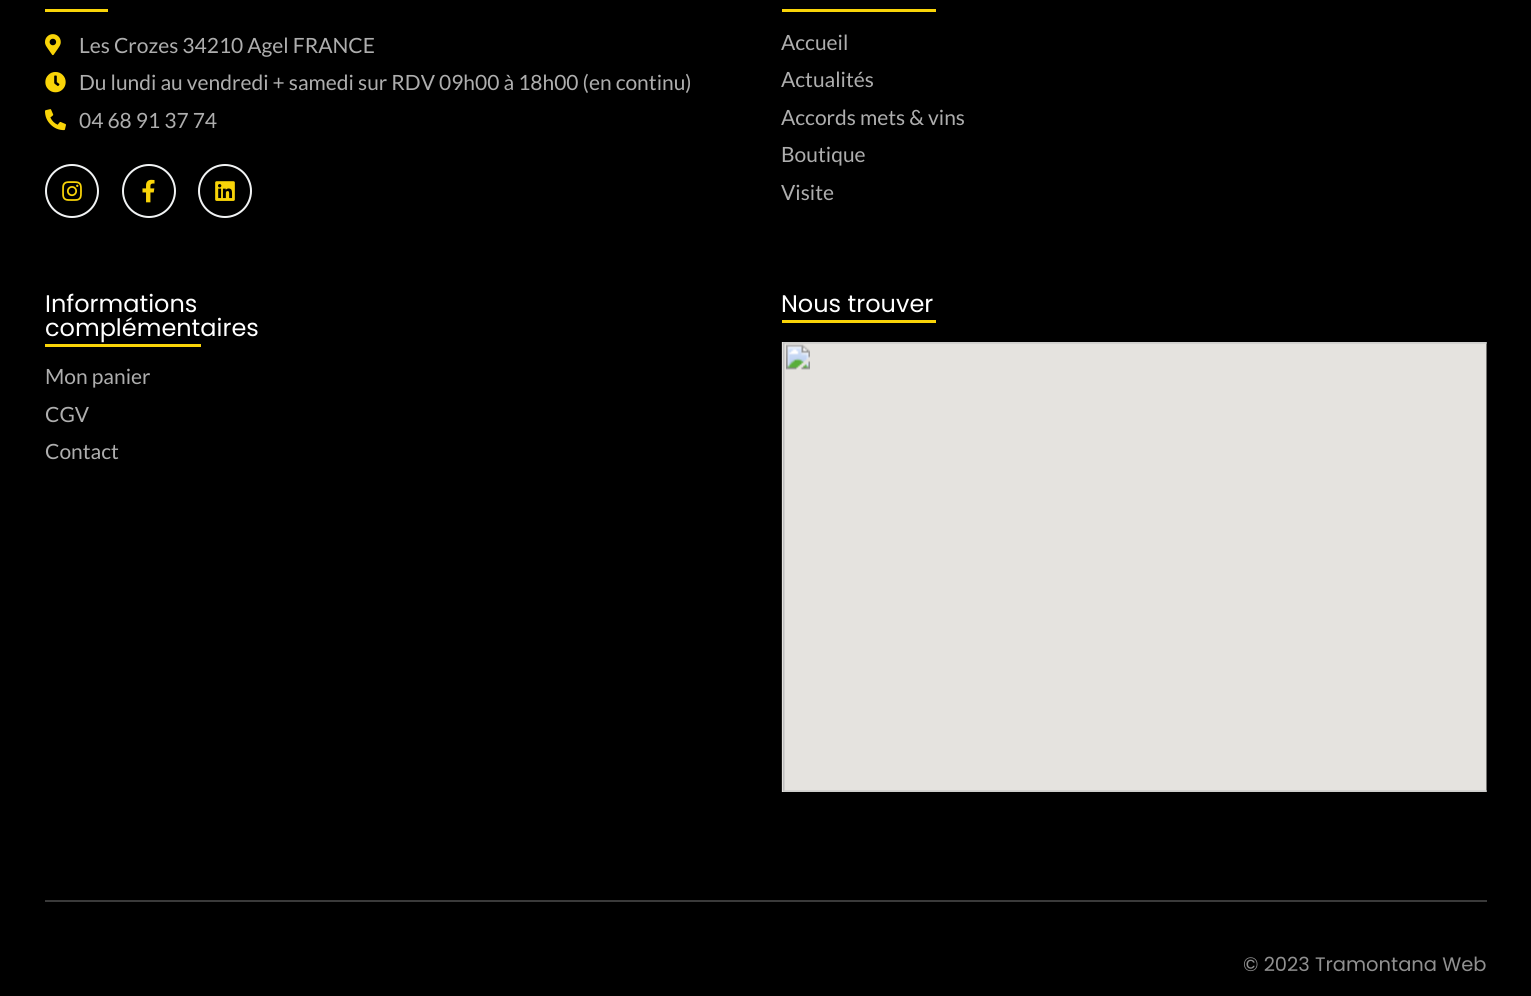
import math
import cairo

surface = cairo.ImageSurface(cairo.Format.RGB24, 1531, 996)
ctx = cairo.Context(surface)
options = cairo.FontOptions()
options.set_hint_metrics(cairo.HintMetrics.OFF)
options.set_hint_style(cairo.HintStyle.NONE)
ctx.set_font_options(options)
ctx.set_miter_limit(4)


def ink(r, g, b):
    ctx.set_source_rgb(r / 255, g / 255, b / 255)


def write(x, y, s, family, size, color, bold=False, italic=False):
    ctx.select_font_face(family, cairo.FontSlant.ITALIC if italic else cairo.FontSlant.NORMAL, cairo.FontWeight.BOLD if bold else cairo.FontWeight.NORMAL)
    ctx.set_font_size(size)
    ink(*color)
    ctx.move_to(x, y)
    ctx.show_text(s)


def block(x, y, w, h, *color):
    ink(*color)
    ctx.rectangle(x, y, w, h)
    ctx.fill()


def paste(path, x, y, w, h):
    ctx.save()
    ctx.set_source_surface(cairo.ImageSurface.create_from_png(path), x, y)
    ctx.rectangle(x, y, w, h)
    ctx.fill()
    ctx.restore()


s1 = dict(family="Lato", size=21, color=(174, 174, 174))
s2 = dict(family="Poppins", size=24, color=(255, 255, 255))
s3 = dict(family="Poppins", size=19.5, color=(144, 144, 144))

ink(0, 0, 0)
ctx.paint()
block(45, 9, 63, 3, 249, 212, 8)
paste("pic1.png", 45, 34, 16, 22)
write(79, 53, "Les Crozes 34210 Agel FRANCE", **s1)
paste("pic2.png", 45, 72, 21, 21)
write(79, 90, "Du lundi au vendredi + samedi sur RDV 09h00 à 18h00 (en continu)", **s1)
paste("pic3.png", 45, 109, 21, 22)
write(79, 128, "04 68 91 37 74", **s1)
ctx.new_path()
ctx.arc(72, 191, 26, 0, 2 * math.pi)
ink(241, 243, 244)
ctx.stroke()
paste("pic4.png", 62, 181, 20, 20)
ctx.arc(149, 191, 26, 0, 2 * math.pi)
ctx.stroke()
paste("pic5.png", 142, 179, 13, 24)
ctx.arc(225, 191, 26, 0, 2 * math.pi)
ctx.stroke()
paste("pic6.png", 215, 181, 20, 20)
block(782, 9, 154, 3, 249, 212, 8)
write(781, 50, "Accueil", **s1)
write(781, 87, "Actualités", **s1)
write(781, 125, "Accords mets & vins", **s1)
write(781, 162, "Boutique", **s1)
write(781, 200, "Visite", **s1)
write(45, 312, "Informations", **s2)
write(45, 336, "complémentaires", **s2)
block(45, 344, 156, 3, 249, 212, 8)
write(45, 384, "Mon panier", **s1)
write(45, 422, "CGV", **s1)
write(45, 459, "Contact", **s1)
write(781, 312, "Nous trouver", **s2)
block(782, 320, 154, 3, 249, 212, 8)
paste("pic7.png", 781, 342, 706, 450)
block(45, 900, 1442, 2, 58, 58, 58)
write(1243, 971, "© 2023 Tramontana Web", **s3)
surface.write_to_png("screenshot.png")
